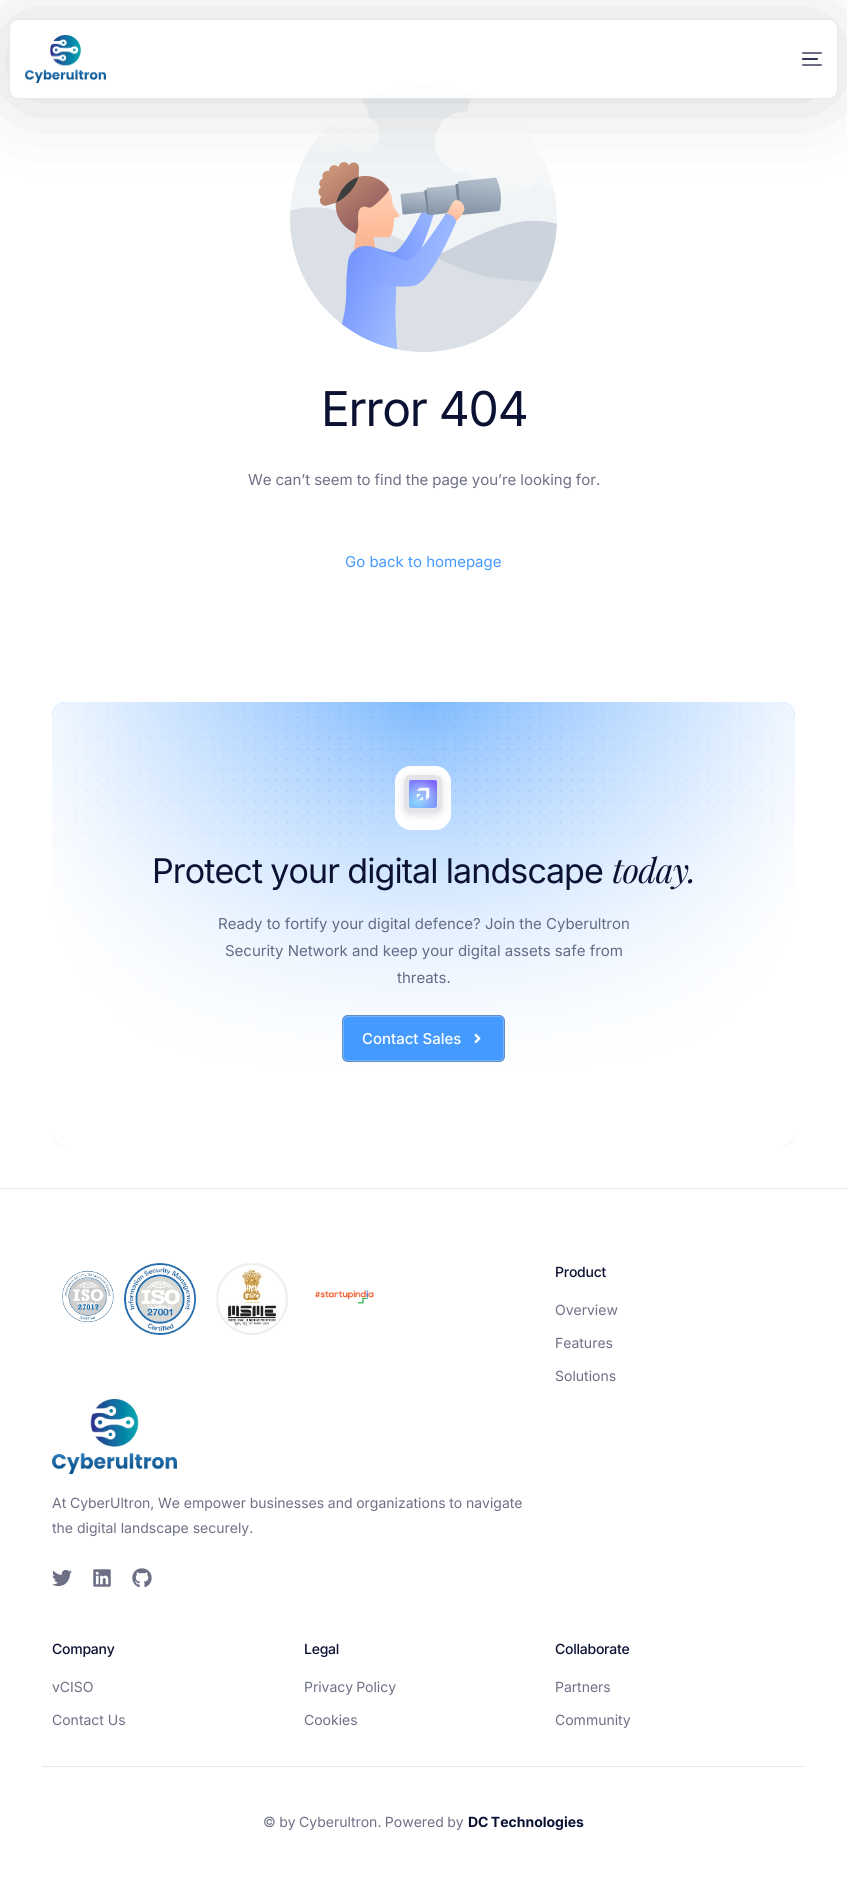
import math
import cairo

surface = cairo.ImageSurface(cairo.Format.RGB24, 847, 1896)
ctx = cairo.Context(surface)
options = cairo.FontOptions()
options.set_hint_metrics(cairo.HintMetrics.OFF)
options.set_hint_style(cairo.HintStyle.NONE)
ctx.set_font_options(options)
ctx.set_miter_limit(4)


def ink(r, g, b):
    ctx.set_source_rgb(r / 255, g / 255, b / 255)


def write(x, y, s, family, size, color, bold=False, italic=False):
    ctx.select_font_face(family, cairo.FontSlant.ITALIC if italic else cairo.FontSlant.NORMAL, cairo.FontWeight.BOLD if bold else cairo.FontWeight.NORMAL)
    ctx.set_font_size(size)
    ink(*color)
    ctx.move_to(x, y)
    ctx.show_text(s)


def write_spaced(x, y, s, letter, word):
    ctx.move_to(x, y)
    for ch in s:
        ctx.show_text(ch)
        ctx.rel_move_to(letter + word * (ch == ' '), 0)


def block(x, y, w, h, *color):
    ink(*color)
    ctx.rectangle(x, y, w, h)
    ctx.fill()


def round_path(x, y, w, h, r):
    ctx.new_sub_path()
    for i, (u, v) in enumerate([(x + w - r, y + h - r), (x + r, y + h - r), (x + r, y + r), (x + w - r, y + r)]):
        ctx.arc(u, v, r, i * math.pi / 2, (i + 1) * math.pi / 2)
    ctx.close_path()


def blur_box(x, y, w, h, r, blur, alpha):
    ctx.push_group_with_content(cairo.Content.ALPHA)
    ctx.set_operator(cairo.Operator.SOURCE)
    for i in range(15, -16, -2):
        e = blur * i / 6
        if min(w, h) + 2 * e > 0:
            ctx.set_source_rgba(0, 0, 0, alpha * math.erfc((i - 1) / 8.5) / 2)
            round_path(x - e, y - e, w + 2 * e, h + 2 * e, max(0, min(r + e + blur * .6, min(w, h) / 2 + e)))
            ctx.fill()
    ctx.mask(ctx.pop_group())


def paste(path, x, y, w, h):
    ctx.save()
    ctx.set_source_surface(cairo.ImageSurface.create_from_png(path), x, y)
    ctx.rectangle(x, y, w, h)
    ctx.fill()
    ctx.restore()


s1 = dict(family="Inter", size=15, color=(68, 154, 255))
s2 = dict(family="Inter", size=15, color=(99, 107, 133))
s3 = dict(family="Inter Medium", size=15, color=(255, 255, 255))
s4 = dict(family="Inter", size=14, color=(109, 112, 133))

ink(255, 255, 255)
ctx.paint()
paste("pic2.png", 290, 85, 267, 267)
ctx.save()
ctx.set_fill_rule(cairo.FillRule.EVEN_ODD)
ctx.new_path()
ctx.move_to(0, 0)
ctx.line_to(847, 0)
ctx.line_to(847, 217)
ctx.line_to(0, 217)
ctx.close_path()
ctx.move_to(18, 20)
ctx.line_to(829, 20)
ctx.curve_to(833.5, 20, 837, 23.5, 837, 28)
ctx.line_to(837, 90)
ctx.curve_to(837, 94.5, 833.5, 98, 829, 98)
ctx.line_to(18, 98)
ctx.curve_to(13.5, 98, 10, 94.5, 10, 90)
ctx.line_to(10, 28)
ctx.curve_to(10, 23.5, 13.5, 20, 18, 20)
ctx.close_path()
ctx.clip()
ink(0, 0, 0)
blur_box(28, 43, 787, 38, 0, 45, 0.25)
ctx.restore()
ctx.set_source_rgba(1, 1, 1, 0.85)
round_path(9.5, 19.5, 828, 79, 8.5)
ctx.fill_preserve()
ink(232, 232, 232)
ctx.set_line_width(1)
ctx.stroke()
paste("pic1.png", 25, 35, 81, 48)
ink(109, 112, 133)
round_path(802, 52, 20, 2, 1)
ctx.fill()
round_path(802, 58, 16, 2, 1)
ctx.fill()
ctx.set_source_rgba(0.043, 0.067, 0.2, 0.6)
round_path(802, 58, 16, 2, 1)
ctx.fill()
ink(109, 112, 133)
round_path(802, 64, 20, 2, 1)
ctx.fill()
ctx.select_font_face("Inter")
ctx.set_font_size(48)
ink(11, 17, 51)
write_spaced(321, 426, "Error 404", -1.25, 0)
ctx.set_font_size(15)
ink(109, 112, 133)
write_spaced(248, 485, "We can’t seem to find the page you’re looking for.", 0, -0.25)
write(345, 567, "Go back to homepage", **s1)
round_path(52, 702, 743, 444, 14)
ctx.fill()
gradient = cairo.RadialGradient(0, 0, 0, 0, 0, 1)
gradient.set_matrix(cairo.Matrix(1 / 525, 0, 0, 1 / 628, -1 * 424 / 525, -1 * 702 / 628))
gradient.add_color_stop_rgba(0, 1, 1, 1, 0.32)
gradient.add_color_stop_rgba(0.8, 1, 1, 1, 1)
ctx.set_source(gradient)
round_path(52, 702, 743, 444, 14)
ctx.fill()
gradient = cairo.LinearGradient(424, 702, 424, 1146)
gradient.add_color_stop_rgba(0, 1, 1, 1, 0)
gradient.add_color_stop_rgba(0.85, 1, 1, 1, 1)
ctx.set_source(gradient)
round_path(52, 702, 743, 444, 14)
ctx.fill()
paste("pic3.png", 54, 706, 740, 139)
ink(255, 255, 255)
round_path(395, 766, 56, 64, 16)
ctx.fill()
ctx.save()
ctx.set_fill_rule(cairo.FillRule.EVEN_ODD)
ctx.new_path()
ctx.move_to(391, 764)
ctx.line_to(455, 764)
ctx.line_to(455, 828)
ctx.line_to(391, 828)
ctx.close_path()
ctx.move_to(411, 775)
ctx.line_to(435, 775)
ctx.curve_to(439, 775, 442, 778, 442, 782)
ctx.line_to(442, 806)
ctx.curve_to(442, 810, 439, 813, 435, 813)
ctx.line_to(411, 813)
ctx.curve_to(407, 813, 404, 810, 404, 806)
ctx.line_to(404, 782)
ctx.curve_to(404, 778, 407, 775, 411, 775)
ctx.close_path()
ctx.clip()
ink(11, 17, 51)
blur_box(404, 777, 38, 38, 7, 4, 0.14)
ctx.restore()
round_path(406.5, 777.5, 33, 33, 4.5)
ctx.set_source_rgba(0.682, 0.69, 0.737, 0.35)
ctx.set_line_width(5)
ctx.stroke()
paste("pic4.png", 409, 780, 28, 28)
ctx.set_font_size(34)
ink(11, 17, 51)
write_spaced(152, 883, "Protect your digital landscape", -0.9, -0.5)
ctx.select_font_face("Playfair Display", cairo.FontSlant.ITALIC)
write_spaced(612, 883, "today.", -0.9, 0)
write(218, 929, "Ready to fortify your digital defence? Join the Cyberultron", **s2)
write(225, 956, "Security Network and keep your digital assets safe from", **s2)
write(397, 983, "threats.", **s2)
ink(68, 154, 255)
round_path(342, 1015, 163, 47, 6)
ctx.fill()
round_path(343.5, 1016.5, 160, 44, 4.5)
ink(115, 179, 255)
ctx.set_line_width(1)
ctx.stroke()
round_path(342.5, 1015.5, 162, 46, 5.5)
ctx.set_source_rgba(0.51, 0.51, 0.51, 0.47)
ctx.stroke()
write(362, 1044, "Contact Sales", **s3)
paste("pic5.png", 474, 1033, 7, 11)
block(0, 1188, 847, 1, 233, 233, 233)
ctx.set_font_size(14)
ink(11, 17, 51)
write_spaced(555, 1277, "Product", -0.25, 0)
write(555, 1315, "Overview", **s4)
write(555, 1348, "Features", **s4)
write(555, 1381, "Solutions", **s4)
paste("pic6.png", 62, 1270, 52, 53)
paste("pic7.png", 124, 1263, 72, 72)
paste("pic8.png", 216, 1263, 72, 72)
paste("pic9.png", 314, 1290, 60, 14)
paste("pic10.png", 52, 1399, 125, 75)
write_spaced(52, 1508, "At CyberUltron, We empower businesses and organizations to navigate", 0, -0.25)
write(52, 1533, "the digital landscape securely.", **s4)
paste("pic11.png", 52, 1569, 20, 18)
paste("pic12.png", 93, 1569, 18, 18)
paste("pic13.png", 132, 1568, 20, 20)
ctx.select_font_face("Inter Medium")
ink(11, 17, 51)
write_spaced(52, 1654, "Company", -0.25, 0)
write(52, 1692, "vCISO", **s4)
write(52, 1725, "Contact Us", **s4)
ctx.select_font_face("Inter Medium")
ink(11, 17, 51)
write_spaced(304, 1654, "Legal", -0.25, 0)
ctx.select_font_face("Inter")
ink(109, 112, 133)
write_spaced(304, 1692, "Privacy Policy", 0, -1)
write(304, 1725, "Cookies", **s4)
ctx.select_font_face("Inter Medium")
ink(11, 17, 51)
write_spaced(555, 1654, "Collaborate", -0.25, 0)
write(555, 1692, "Partners", **s4)
write(555, 1725, "Community", **s4)
block(42, 1766, 763, 1, 233, 233, 233)
ink(109, 112, 133)
write_spaced(263, 1827, "© by Cyberultron. Powered by", 0, -0.5)
ctx.select_font_face("Inter", cairo.FontSlant.NORMAL, cairo.FontWeight.BOLD)
ink(11, 17, 51)
write_spaced(468, 1827, "DC Technologies", 0, -1)
surface.write_to_png("screenshot.png")
